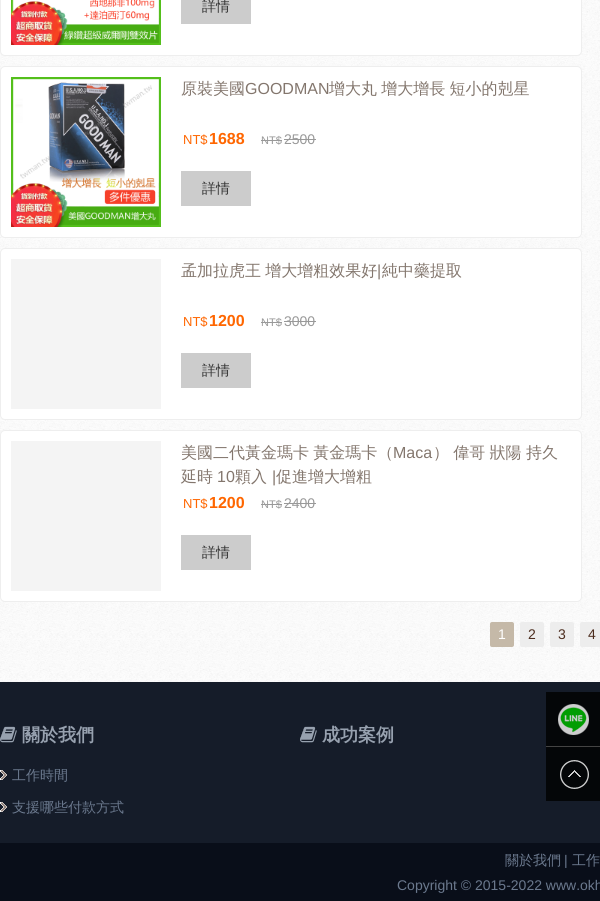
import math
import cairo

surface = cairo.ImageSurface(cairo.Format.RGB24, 600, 901)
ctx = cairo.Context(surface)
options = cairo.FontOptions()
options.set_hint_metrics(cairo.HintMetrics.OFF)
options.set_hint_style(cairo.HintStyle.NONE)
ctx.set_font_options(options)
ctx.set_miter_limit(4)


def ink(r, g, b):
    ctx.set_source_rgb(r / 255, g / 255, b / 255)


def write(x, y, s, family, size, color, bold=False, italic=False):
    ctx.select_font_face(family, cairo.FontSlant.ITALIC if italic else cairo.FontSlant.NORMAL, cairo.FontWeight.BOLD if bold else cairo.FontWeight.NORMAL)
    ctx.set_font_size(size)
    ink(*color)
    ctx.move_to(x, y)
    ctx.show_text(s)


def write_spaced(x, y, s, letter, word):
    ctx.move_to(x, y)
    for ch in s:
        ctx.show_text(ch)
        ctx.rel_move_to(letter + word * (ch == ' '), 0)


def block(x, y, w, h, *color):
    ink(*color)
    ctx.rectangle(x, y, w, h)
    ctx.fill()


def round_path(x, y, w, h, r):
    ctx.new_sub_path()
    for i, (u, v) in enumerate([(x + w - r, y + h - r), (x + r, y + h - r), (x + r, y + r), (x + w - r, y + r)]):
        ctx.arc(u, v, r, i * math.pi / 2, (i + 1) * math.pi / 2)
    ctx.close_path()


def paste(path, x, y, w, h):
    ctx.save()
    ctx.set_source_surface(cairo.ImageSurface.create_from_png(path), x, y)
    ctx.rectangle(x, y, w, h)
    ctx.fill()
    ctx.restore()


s1 = dict(family="WenQuanYi Zen Hei Medium", size=14, color=(51, 51, 51))
s2 = dict(family="WenQuanYi Zen Hei Medium", size=16, color=(131, 118, 109))
s3 = dict(family="Liberation Sans", size=16, color=(131, 118, 109))
s4 = dict(family="Liberation Sans", size=13, color=(255, 102, 0))
s5 = dict(family="Liberation Sans", size=16, color=(255, 102, 0), bold=True)
s6 = dict(family="Liberation Sans", size=11, color=(153, 153, 153))
s7 = dict(family="Liberation Sans", size=14, color=(153, 153, 153))
s8 = dict(family="Liberation Sans", size=14, color=(255, 255, 255))
s9 = dict(family="Liberation Sans", size=14, color=(76, 45, 30))
s10 = dict(family="WenQuanYi Zen Hei", size=18, color=(151, 161, 175), bold=True)
s11 = dict(family="WenQuanYi Zen Hei Medium", size=14, color=(107, 121, 142))
s12 = dict(family="Liberation Sans", size=14, color=(107, 121, 142))

ink(255, 255, 255)
ctx.paint()
paste("pic1.png", 0, 0, 600, 682)
ink(255, 255, 255)
round_path(0.5, -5.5, 581, 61, 4.5)
ctx.fill_preserve()
ink(238, 238, 238)
ctx.set_line_width(1)
ctx.stroke()
paste("pic2.png", 11, 0, 150, 45)
block(181, 0, 70, 24, 204, 204, 204)
write(202, 11, "詳情", **s1)
ink(255, 255, 255)
round_path(0.5, 66.5, 581, 171, 4.5)
ctx.fill_preserve()
ink(238, 238, 238)
ctx.stroke()
paste("pic3.png", 11, 77, 150, 150)
write(181, 94, "原裝美國", **s2)
write(245, 94, "GOODMAN", **s3)
ctx.select_font_face("WenQuanYi Zen Hei Medium")
write_spaced(329, 94, "增大丸 增大增長 短小的剋星", 0, -0.5)
write(183, 144, "NT$", **s4)
write(209, 144, "1688", **s5)
write(261, 144, "NT$", **s6)
block(261, 140, 21, 1, 153, 153, 153)
write(284, 144, "2500", **s7)
block(284, 139, 32, 1, 153, 153, 153)
block(181, 171, 70, 35, 204, 204, 204)
write(202, 193, "詳情", **s1)
ink(255, 255, 255)
round_path(0.5, 248.5, 581, 171, 4.5)
ctx.fill_preserve()
ink(238, 238, 238)
ctx.stroke()
block(11, 259, 150, 150, 244, 244, 244)
ctx.set_font_size(16)
ink(131, 118, 109)
write_spaced(181, 276, "孟加拉虎王 增大增粗效果好", 0, -0.5)
write(377, 276, "|", **s3)
write(382, 276, "純中藥提取", **s2)
write(183, 326, "NT$", **s4)
write(209, 326, "1200", **s5)
write(261, 326, "NT$", **s6)
block(261, 322, 21, 1, 153, 153, 153)
write(284, 326, "3000", **s7)
block(284, 321, 32, 1, 153, 153, 153)
block(181, 353, 70, 35, 204, 204, 204)
write(202, 375, "詳情", **s1)
ink(255, 255, 255)
round_path(0.5, 430.5, 581, 171, 4.5)
ctx.fill_preserve()
ink(238, 238, 238)
ctx.stroke()
block(11, 441, 150, 150, 244, 244, 244)
ctx.set_font_size(16)
ink(131, 118, 109)
write_spaced(181, 458, "美國二代黃金瑪卡 黃金瑪卡（", 0, -0.5)
write(393, 458, "Maca", **s3)
ctx.select_font_face("WenQuanYi Zen Hei Medium")
write_spaced(433, 458, "） 偉哥 狀陽 持久", 0, -0.5)
write(181, 482, "延時", **s2)
write(217, 482, "10", **s3)
write(235, 482, "顆入", **s2)
write(272, 482, "|", **s3)
write(276, 482, "促進增大增粗", **s2)
write(183, 508, "NT$", **s4)
write(209, 508, "1200", **s5)
write(261, 508, "NT$", **s6)
block(261, 504, 21, 1, 153, 153, 153)
write(284, 508, "2400", **s7)
block(284, 503, 32, 1, 153, 153, 153)
block(181, 535, 70, 35, 204, 204, 204)
write(202, 557, "詳情", **s1)
ink(197, 185, 168)
round_path(490, 622, 24, 25, 2)
ctx.fill()
write(498, 639, "1", **s8)
ink(237, 237, 237)
round_path(520, 622, 24, 25, 2)
ctx.fill()
write(528, 639, "2", **s9)
ink(237, 237, 237)
round_path(550, 622, 24, 25, 2)
ctx.fill()
write(558, 639, "3", **s9)
ink(237, 237, 237)
round_path(580, 622, 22, 25, 2)
ctx.fill()
write(588, 639, "4", **s9)
block(0, 682, 600, 161, 21, 28, 41)
block(546, 746, 54, 1, 68, 68, 68)
block(546, 692, 54, 54, 4, 6, 8)
paste("pic4.png", 558, 704, 31, 31)
block(546, 747, 54, 54, 4, 6, 8)
paste("pic5.png", 560, 760, 29, 29)
paste("pic6.png", 0, 726, 17, 17)
write(22, 741, "關於我們", **s10)
paste("pic7.png", 0, 770, 7, 10)
write(12, 780, "工作時間", **s11)
paste("pic7.png", 0, 802, 7, 10)
write(12, 812, "支援哪些付款方式", **s11)
paste("pic6.png", 300, 726, 17, 17)
write(322, 741, "成功案例", **s10)
block(0, 843, 600, 58, 9, 14, 25)
write(505, 865, "關於我們", **s11)
write(564, 865, "|", **s12)
write(572, 865, "工作", **s11)
write(397, 890, "Copyright © 2015-2022 www.okh", **s12)
surface.write_to_png("screenshot.png")
